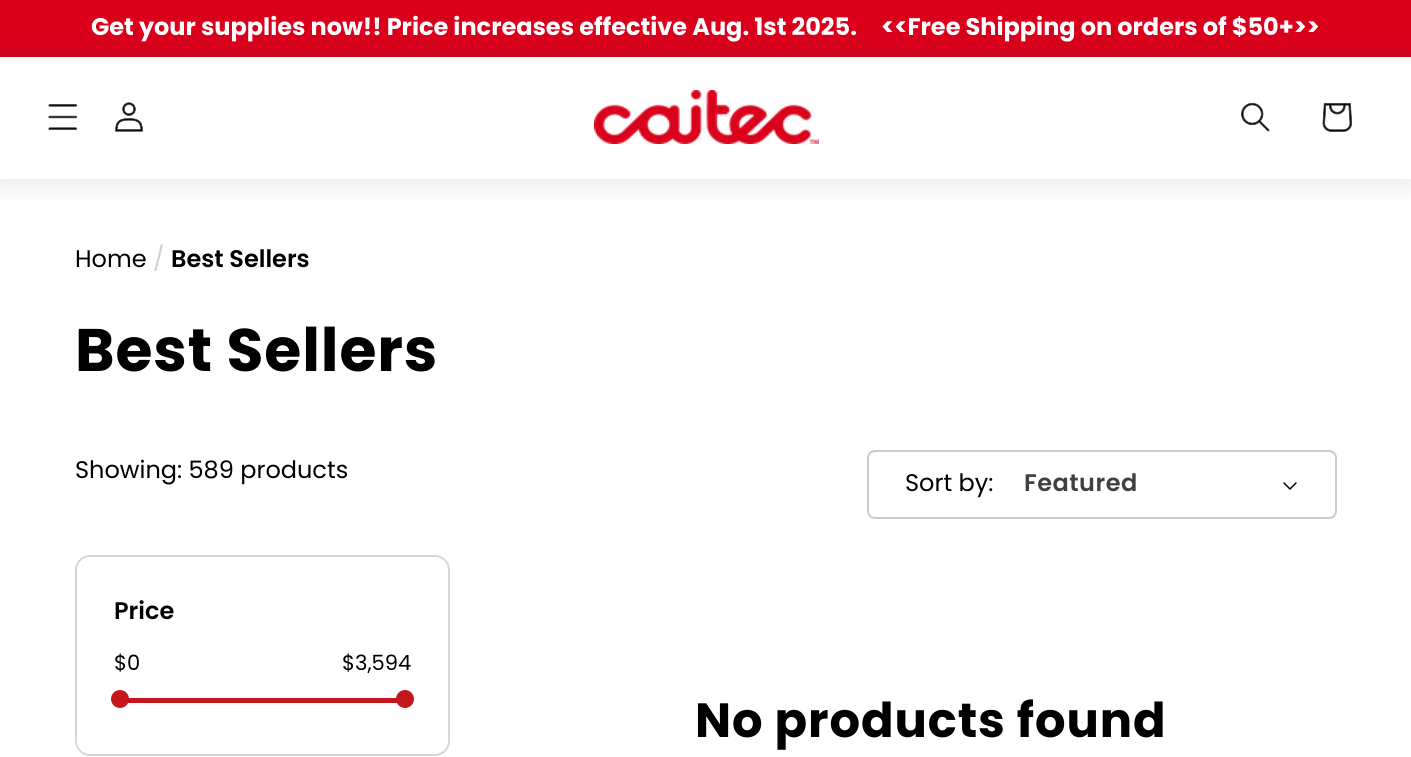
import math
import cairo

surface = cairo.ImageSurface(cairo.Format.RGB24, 1411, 757)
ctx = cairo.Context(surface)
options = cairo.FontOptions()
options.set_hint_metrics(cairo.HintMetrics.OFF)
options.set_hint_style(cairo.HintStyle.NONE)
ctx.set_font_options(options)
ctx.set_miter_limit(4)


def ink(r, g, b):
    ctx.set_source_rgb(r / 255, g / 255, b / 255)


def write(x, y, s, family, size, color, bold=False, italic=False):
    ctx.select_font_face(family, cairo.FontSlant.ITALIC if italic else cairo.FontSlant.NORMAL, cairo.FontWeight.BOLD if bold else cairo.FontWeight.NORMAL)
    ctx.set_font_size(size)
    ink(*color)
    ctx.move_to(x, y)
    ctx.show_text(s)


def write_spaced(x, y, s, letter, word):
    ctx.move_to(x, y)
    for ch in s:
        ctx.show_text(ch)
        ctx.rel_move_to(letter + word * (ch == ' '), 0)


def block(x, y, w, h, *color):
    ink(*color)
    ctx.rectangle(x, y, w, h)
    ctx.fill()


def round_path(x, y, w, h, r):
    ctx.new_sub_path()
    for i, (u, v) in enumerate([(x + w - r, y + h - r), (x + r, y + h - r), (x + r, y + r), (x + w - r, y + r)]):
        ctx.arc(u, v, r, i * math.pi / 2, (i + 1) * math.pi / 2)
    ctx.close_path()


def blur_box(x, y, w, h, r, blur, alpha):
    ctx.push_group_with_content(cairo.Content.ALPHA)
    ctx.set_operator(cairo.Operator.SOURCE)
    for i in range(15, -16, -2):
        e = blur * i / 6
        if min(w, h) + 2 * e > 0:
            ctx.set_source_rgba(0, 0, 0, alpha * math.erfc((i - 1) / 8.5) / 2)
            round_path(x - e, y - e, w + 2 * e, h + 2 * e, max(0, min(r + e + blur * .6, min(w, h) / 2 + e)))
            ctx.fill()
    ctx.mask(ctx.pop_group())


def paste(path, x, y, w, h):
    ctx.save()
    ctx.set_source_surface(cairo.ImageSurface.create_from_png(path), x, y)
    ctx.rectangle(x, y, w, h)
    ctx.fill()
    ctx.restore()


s1 = dict(family="Poppins", size=24, color=(255, 255, 255), bold=True)
s2 = dict(family="Poppins", size=24, color=(0, 0, 0))
s3 = dict(family="Poppins", size=24, color=(209, 209, 209))
s4 = dict(family="Poppins SemiBold", size=24, color=(0, 0, 0))
s5 = dict(family="Poppins", size=21, color=(0, 0, 0))

ink(255, 255, 255)
ctx.paint()
block(0, 0, 1411, 56, 218, 0, 28)
block(0, 56, 1411, 1, 201, 0, 26)
ink(56, 56, 56)
blur_box(0, 60, 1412, 122, 0, 15, 0.14)
block(0, 57, 1411, 122, 255, 255, 255)
paste("pic1.png", 48, 104, 29, 26)
paste("pic2.png", 115, 102, 28, 30)
paste("pic3.png", 594, 90, 225, 54)
paste("pic4.png", 1241, 102, 29, 30)
paste("pic5.png", 1322, 103, 31, 29)
write(91, 35, "Get your supplies now!! Price increases effective Aug. 1st 2025.", **s1)
write(881, 35, "<<Free Shipping on orders of $50+>>", **s1)
write(75, 267, "Home", **s2)
write(153, 267, "/", **s3)
write(171, 267, "Best Sellers", **s4)
ctx.select_font_face("Poppins", cairo.FontSlant.NORMAL, cairo.FontWeight.BOLD)
ctx.set_font_size(60)
write_spaced(75, 371, "Best Sellers", 0.9, 0)
write(75, 478, "Showing: 589 products", **s2)
round_path(868, 451, 468, 67, 7)
ink(203, 203, 203)
ctx.stroke()
write(905, 491, "Sort by:", **s2)
ctx.select_font_face("Poppins SemiBold")
ink(64, 64, 64)
write_spaced(1024, 491, "Featured", 0.5, 0)
paste("pic6.png", 1283, 482, 14, 8)
round_path(76, 556, 373, 199, 14)
ink(221, 212, 212)
ctx.stroke()
write(114, 619, "Price", **s4)
write(114, 670, "$0", **s5)
write(342, 670, "$3,594", **s5)
block(126, 698, 271, 5, 196, 22, 28)
ctx.new_path()
ctx.arc(120, 699, 7.5, 0, 2 * math.pi)
ctx.fill_preserve()
ctx.set_line_width(3)
ctx.stroke()
ctx.arc(405, 699, 7.5, 0, 2 * math.pi)
ctx.fill_preserve()
ctx.stroke()
ctx.select_font_face("Poppins", cairo.FontSlant.NORMAL, cairo.FontWeight.BOLD)
ctx.set_font_size(48)
ink(0, 0, 0)
write_spaced(695, 737, "No products found", 0.9, 0)
surface.write_to_png("screenshot.png")
